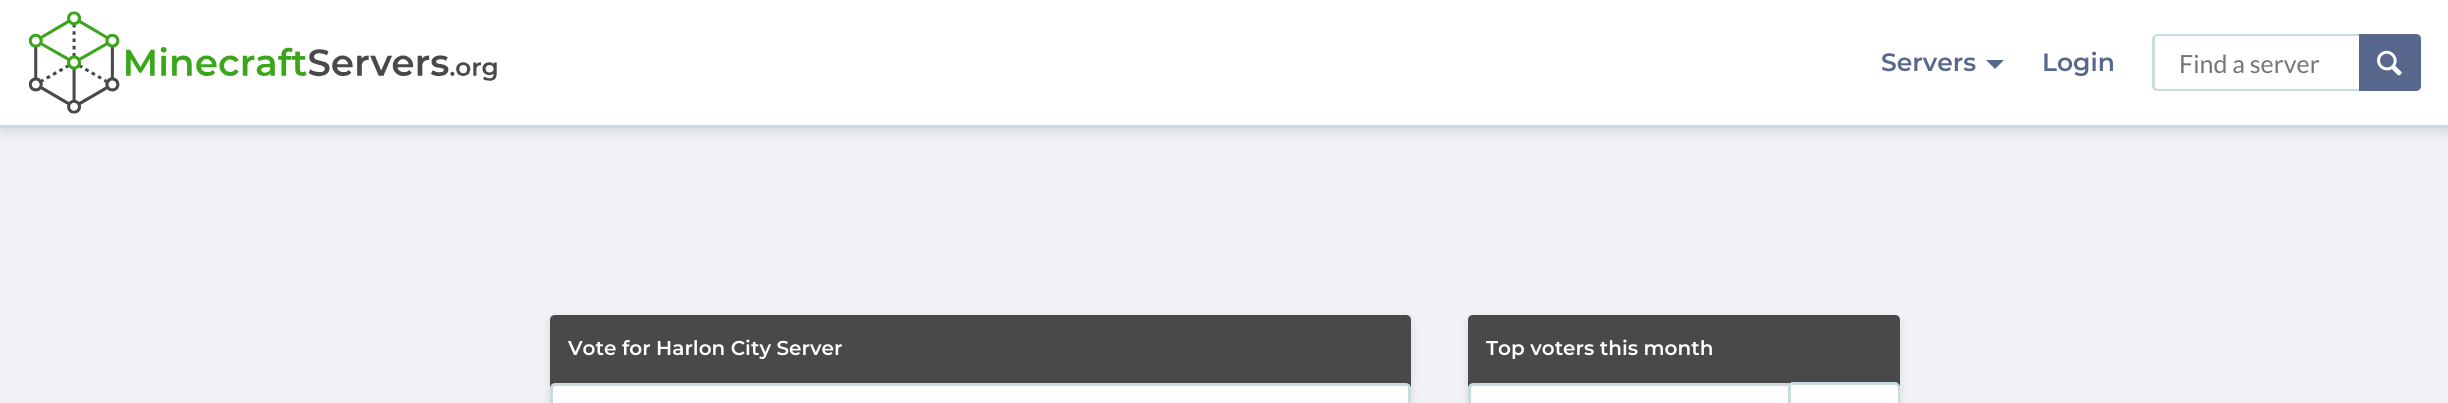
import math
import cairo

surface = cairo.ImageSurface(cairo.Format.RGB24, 2448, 403)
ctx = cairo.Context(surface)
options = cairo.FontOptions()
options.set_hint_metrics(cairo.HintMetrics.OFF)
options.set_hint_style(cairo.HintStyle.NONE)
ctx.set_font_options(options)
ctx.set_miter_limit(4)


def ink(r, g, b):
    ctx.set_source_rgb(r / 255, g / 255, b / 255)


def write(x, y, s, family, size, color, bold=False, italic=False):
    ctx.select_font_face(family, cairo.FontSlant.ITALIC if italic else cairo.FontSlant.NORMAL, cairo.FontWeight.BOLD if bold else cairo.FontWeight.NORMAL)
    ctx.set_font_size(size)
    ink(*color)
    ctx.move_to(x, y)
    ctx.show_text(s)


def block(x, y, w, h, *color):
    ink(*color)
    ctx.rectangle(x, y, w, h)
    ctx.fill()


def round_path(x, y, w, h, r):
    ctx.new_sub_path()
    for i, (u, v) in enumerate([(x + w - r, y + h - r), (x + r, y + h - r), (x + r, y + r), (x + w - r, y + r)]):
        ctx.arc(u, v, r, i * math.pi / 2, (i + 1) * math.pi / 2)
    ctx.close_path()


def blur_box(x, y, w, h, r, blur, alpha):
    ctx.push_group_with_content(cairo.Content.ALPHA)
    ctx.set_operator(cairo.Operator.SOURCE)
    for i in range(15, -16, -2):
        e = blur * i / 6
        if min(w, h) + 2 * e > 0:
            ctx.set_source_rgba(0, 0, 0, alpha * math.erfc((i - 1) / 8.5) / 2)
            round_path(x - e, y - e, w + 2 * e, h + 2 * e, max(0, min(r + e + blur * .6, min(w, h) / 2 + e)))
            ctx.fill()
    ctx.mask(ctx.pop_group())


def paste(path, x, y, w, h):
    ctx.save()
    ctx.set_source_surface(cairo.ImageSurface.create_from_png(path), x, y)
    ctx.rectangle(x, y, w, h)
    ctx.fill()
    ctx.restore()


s1 = dict(family="Montserrat SemiBold", size=25, color=(88, 103, 140))
s2 = dict(family="Lato", size=25, color=(117, 117, 117))
s3 = dict(family="Montserrat SemiBold", size=20, color=(255, 255, 255))

ink(240, 242, 246)
ctx.paint()
ink(0, 0, 0)
blur_box(0, 5, 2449, 128, 0, 5, 0.1)
block(0, 0, 2448, 125, 255, 255, 255)
block(0, 125, 2448, 3, 199, 220, 223)
paste("pic1.png", 29, 11, 468, 103)
write(1881, 71, "Servers", **s1)
ctx.new_path()
ctx.move_to(1986, 60)
ctx.line_to(2004, 60)
ctx.line_to(1995, 69)
ctx.close_path()
ctx.fill()
write(2042, 71, "Login", **s1)
ink(199, 220, 223)
ctx.set_fill_rule(cairo.FillRule.EVEN_ODD)
ctx.new_path()
ctx.move_to(2158, 34)
ctx.line_to(2359, 34)
ctx.line_to(2359, 91)
ctx.line_to(2158, 91)
ctx.curve_to(2155, 91, 2152, 89, 2152, 86)
ctx.line_to(2152, 39)
ctx.curve_to(2152, 36, 2155, 34, 2158, 34)
ctx.close_path()
ctx.move_to(2158, 36)
ctx.line_to(2359, 36)
ctx.line_to(2359, 89)
ctx.line_to(2158, 89)
ctx.curve_to(2156, 89, 2155, 88, 2155, 86)
ctx.line_to(2155, 39)
ctx.curve_to(2155, 37, 2156, 36, 2158, 36)
ctx.close_path()
ctx.fill()
write(2179, 73, "Find a server", **s2)
ink(88, 103, 140)
ctx.new_path()
ctx.move_to(2359, 34)
ctx.line_to(2416, 34)
ctx.curve_to(2419, 34, 2421, 36, 2421, 39)
ctx.line_to(2421, 86)
ctx.curve_to(2421, 89, 2419, 91, 2416, 91)
ctx.line_to(2359, 91)
ctx.close_path()
ctx.fill()
paste("pic2.png", 2377, 50, 25, 26)
block(550, 383, 6, 5, 73, 73, 73)
block(1405, 383, 6, 5, 73, 73, 73)
ink(0, 0, 0)
blur_box(550, 320, 861, 68, 5, 5, 0.1)
blur_box(550, 388, 861, 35, 5, 5, 0.1)
ink(73, 73, 73)
ctx.new_path()
ctx.move_to(555, 315)
ctx.line_to(1406, 315)
ctx.curve_to(1409, 315, 1411, 317, 1411, 320)
ctx.line_to(1411, 383)
ctx.line_to(550, 383)
ctx.line_to(550, 320)
ctx.curve_to(550, 317, 552, 315, 555, 315)
ctx.close_path()
ctx.fill()
write(568, 355, "Vote for Harlon City Server", **s3)
round_path(551.5, 384.5, 858, 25, 3.5)
ctx.fill_preserve()
ink(199, 220, 223)
ctx.set_line_width(3)
ctx.stroke()
block(1468, 383, 6, 5, 73, 73, 73)
block(1894, 383, 6, 5, 73, 73, 73)
ink(0, 0, 0)
blur_box(1468, 320, 432, 68, 5, 5, 0.1)
blur_box(1468, 388, 432, 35, 5, 5, 0.1)
ink(73, 73, 73)
ctx.new_path()
ctx.move_to(1473, 315)
ctx.line_to(1895, 315)
ctx.curve_to(1898, 315, 1900, 317, 1900, 320)
ctx.line_to(1900, 383)
ctx.line_to(1468, 383)
ctx.line_to(1468, 320)
ctx.curve_to(1468, 317, 1470, 315, 1473, 315)
ctx.close_path()
ctx.fill()
write(1486, 355, "Top voters this month", **s3)
ctx.new_path()
ctx.move_to(1473, 384.5)
ctx.line_to(1789.5, 384.5)
ctx.line_to(1789.5, 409.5)
ctx.line_to(1469.5, 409.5)
ctx.line_to(1469.5, 388)
ctx.curve_to(1469.5, 386, 1471, 384.5, 1473, 384.5)
ctx.close_path()
ctx.fill_preserve()
ink(199, 220, 223)
ctx.stroke()
ink(255, 255, 255)
ctx.new_path()
ctx.move_to(1791, 383)
ctx.line_to(1895, 383)
ctx.curve_to(1898, 383, 1900, 385, 1900, 388)
ctx.line_to(1900, 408)
ctx.line_to(1791, 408)
ctx.close_path()
ctx.fill()
ink(199, 220, 223)
ctx.new_path()
ctx.move_to(1791, 382)
ctx.line_to(1895, 382)
ctx.curve_to(1898, 382, 1900, 385, 1900, 388)
ctx.line_to(1900, 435)
ctx.line_to(1791, 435)
ctx.close_path()
ctx.move_to(1791, 385)
ctx.line_to(1895, 385)
ctx.curve_to(1896, 385, 1898, 386, 1898, 388)
ctx.line_to(1898, 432)
ctx.line_to(1791, 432)
ctx.close_path()
ctx.fill()
surface.write_to_png("screenshot.png")
